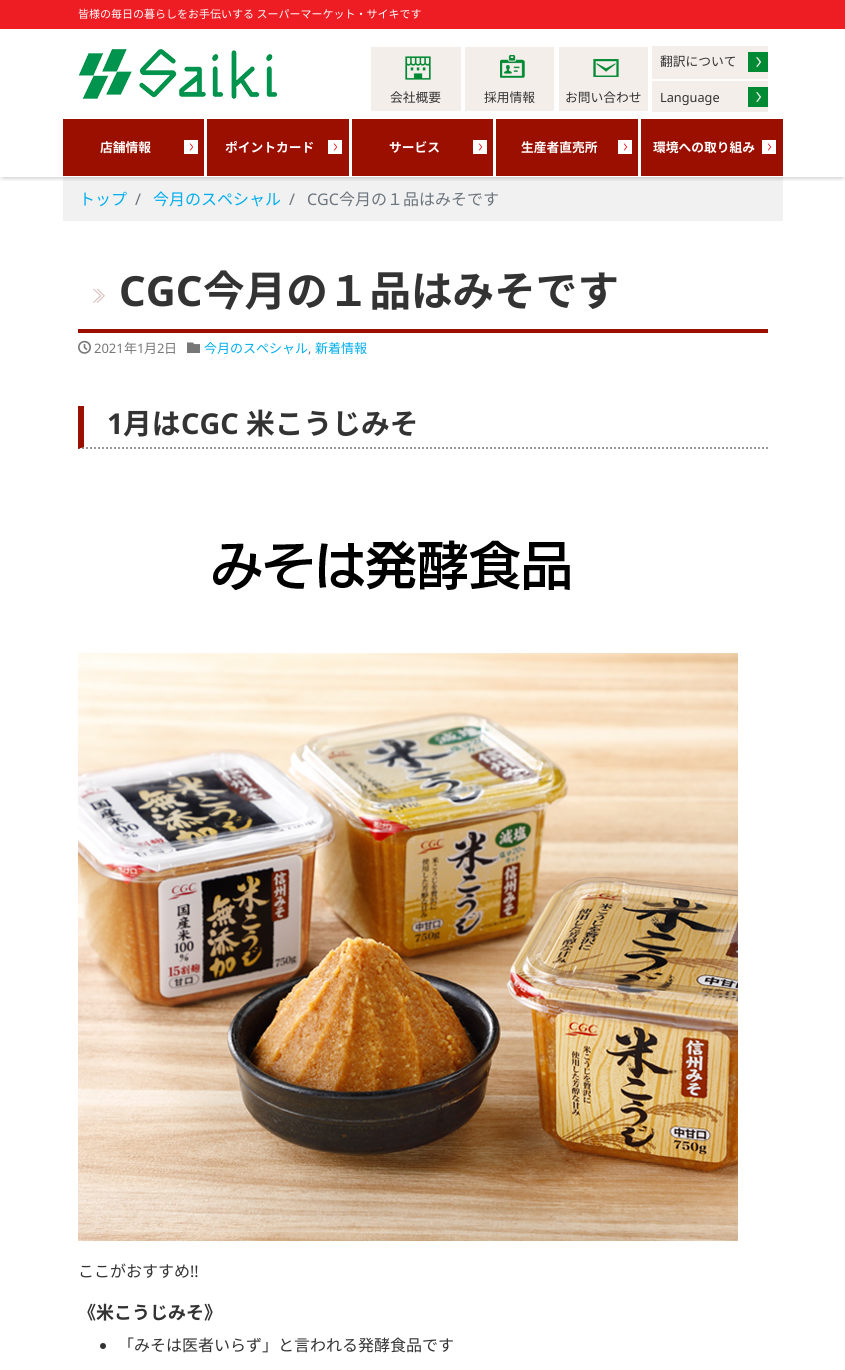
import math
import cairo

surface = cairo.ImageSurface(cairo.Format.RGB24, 845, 1370)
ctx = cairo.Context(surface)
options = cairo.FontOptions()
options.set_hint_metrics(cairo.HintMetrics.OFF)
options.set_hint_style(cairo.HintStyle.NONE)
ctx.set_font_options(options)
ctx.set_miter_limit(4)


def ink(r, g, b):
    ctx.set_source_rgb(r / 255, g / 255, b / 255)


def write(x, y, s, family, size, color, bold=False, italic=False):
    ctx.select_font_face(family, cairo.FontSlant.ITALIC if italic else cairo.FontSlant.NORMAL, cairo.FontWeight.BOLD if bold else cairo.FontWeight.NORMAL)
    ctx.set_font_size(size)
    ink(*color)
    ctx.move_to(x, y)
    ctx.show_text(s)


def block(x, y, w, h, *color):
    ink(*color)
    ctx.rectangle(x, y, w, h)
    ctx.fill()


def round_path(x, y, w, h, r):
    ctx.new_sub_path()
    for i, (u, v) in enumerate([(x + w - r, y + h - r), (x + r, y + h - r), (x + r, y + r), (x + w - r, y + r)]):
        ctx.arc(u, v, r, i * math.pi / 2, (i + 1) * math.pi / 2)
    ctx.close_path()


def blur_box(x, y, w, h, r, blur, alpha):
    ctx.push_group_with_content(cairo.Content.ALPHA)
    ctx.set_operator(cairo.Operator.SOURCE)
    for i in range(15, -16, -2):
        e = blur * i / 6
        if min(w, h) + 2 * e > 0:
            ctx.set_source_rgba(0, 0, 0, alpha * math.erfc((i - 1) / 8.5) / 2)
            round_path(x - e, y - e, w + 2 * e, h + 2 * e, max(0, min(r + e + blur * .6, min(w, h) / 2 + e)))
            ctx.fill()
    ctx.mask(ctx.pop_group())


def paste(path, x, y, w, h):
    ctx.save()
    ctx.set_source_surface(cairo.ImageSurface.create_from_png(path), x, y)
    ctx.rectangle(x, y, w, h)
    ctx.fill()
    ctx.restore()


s1 = dict(family="Noto Sans CJK JP", size=11, color=(255, 255, 255))
s2 = dict(family="Noto Sans CJK JP", size=12.75, color=(51, 51, 51))
s3 = dict(family="Noto Sans", size=12.75, color=(51, 51, 51))
s4 = dict(family="Noto Sans CJK JP", size=12.75, color=(255, 255, 255), bold=True)
s5 = dict(family="Noto Sans CJK JP", size=16, color=(0, 174, 239))
s6 = dict(family="Noto Sans", size=16, color=(108, 117, 125))
s7 = dict(family="Noto Sans CJK JP", size=16, color=(108, 117, 125))
s8 = dict(family="Noto Sans", size=41.6, color=(51, 51, 51), bold=True)
s9 = dict(family="Noto Sans CJK JP", size=41.6, color=(51, 51, 51), bold=True)
s10 = dict(family="Noto Sans", size=13, color=(119, 119, 119))
s11 = dict(family="Noto Sans CJK JP", size=13, color=(119, 119, 119))
s12 = dict(family="Noto Sans CJK JP", size=13, color=(0, 174, 239))
s13 = dict(family="Noto Sans", size=28.75, color=(51, 51, 51), bold=True)
s14 = dict(family="Noto Sans CJK JP", size=28.75, color=(51, 51, 51), bold=True)
s15 = dict(family="Noto Sans CJK JP", size=16, color=(51, 51, 51))
s16 = dict(family="Noto Sans", size=16, color=(51, 51, 51))
s17 = dict(family="Noto Sans CJK JP", size=18, color=(51, 51, 51), bold=True)

ink(255, 255, 255)
ctx.paint()
block(0, 0, 845, 29, 238, 28, 35)
write(78, 18, "皆様の毎日の暮らしをお手伝いする スーパーマーケット・サイキです", **s1)
paste("pic1.png", 78, 49, 200, 50)
block(371, 47, 90, 64, 244, 238, 234)
paste("pic2.png", 405, 56, 26, 24)
write(390, 102, "会社概要", **s2)
block(465, 47, 89, 64, 244, 238, 234)
paste("pic3.png", 500, 55, 25, 23)
write(484, 102, "採用情報", **s2)
block(559, 47, 89, 64, 244, 238, 234)
paste("pic4.png", 593, 59, 26, 18)
write(565, 102, "お問い合わせ", **s2)
block(652, 46, 116, 33, 244, 238, 234)
paste("pic5.png", 748, 52, 20, 20)
write(660, 66, "翻訳について", **s2)
block(652, 81, 116, 31, 244, 238, 234)
paste("pic5.png", 748, 87, 20, 20)
write(660, 102, "Language", **s3)
block(63, 177, 720, 44, 241, 241, 241)
ctx.save()
ctx.rectangle(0, 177, 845, 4)
ctx.clip()
ink(0, 0, 0)
blur_box(3, 125, 839, 52, 0, 3, 0.3)
ctx.restore()
block(63, 119, 141, 57, 155, 15, 1)
paste("pic6.png", 184, 140, 14, 14)
write(100, 152, "店舗情報", **s4)
block(207, 119, 142, 57, 155, 15, 1)
paste("pic6.png", 328, 140, 14, 14)
write(225, 152, "ポイントカード", **s4)
block(352, 119, 141, 57, 155, 15, 1)
paste("pic6.png", 473, 140, 14, 14)
write(389, 152, "サービス", **s4)
block(496, 119, 142, 57, 155, 15, 1)
paste("pic6.png", 618, 140, 14, 14)
write(521, 152, "生産者直売所", **s4)
block(641, 119, 142, 57, 155, 15, 1)
paste("pic6.png", 762, 140, 14, 14)
write(653, 152, "環境への取り組み", **s4)
write(79, 205, "トップ", **s5)
write(135, 205, "/", **s6)
write(153, 205, "今月のスペシャル", **s5)
write(289, 205, "/", **s6)
write(307, 205, "CGC", **s6)
write(339, 205, "今月の１品はみそです", **s7)
paste("pic7.png", 93, 288, 12, 15)
block(78, 329, 690, 4, 155, 15, 1)
write(119, 306, "CGC", **s8)
write(203, 306, "今月の１品はみそです", **s9)
paste("pic8.png", 78, 340, 13, 14)
write(94, 353, "2021", **s10)
write(124, 353, "年", **s11)
write(137, 353, "1", **s10)
write(144, 353, "月", **s11)
write(157, 353, "2", **s10)
write(164, 353, "日", **s11)
paste("pic9.png", 187, 342, 13, 11)
write(204, 353, "今月のスペシャル", **s12)
write(308, 353, ",", **s10)
write(315, 353, "新着情報", **s12)
ctx.new_path()
ctx.move_to(78, 448)
ctx.line_to(768, 448)
ink(153, 153, 153)
ctx.set_dash([2, 2])
ctx.stroke()
ink(155, 15, 1)
ctx.new_path()
ctx.move_to(78, 449)
ctx.line_to(78, 406)
ctx.line_to(84, 406)
ctx.line_to(84, 447)
ctx.close_path()
ctx.fill()
write(107, 434, "1", **s13)
write(123, 434, "月は", **s14)
write(181, 434, "CGC", **s13)
write(246, 434, "米こうじみそ", **s14)
paste("pic10.png", 78, 540, 660, 701)
write(78, 1277, "ここがおすすめ", **s15)
write(190, 1277, "!!", **s16)
write(78, 1319, "《米こうじみそ》", **s17)
ctx.new_path()
ctx.arc(103, 1346, 3, 0, 2 * math.pi)
ctx.fill()
write(118, 1351, "「みそは医者いらず」と言われる発酵食品です", **s15)
surface.write_to_png("screenshot.png")
